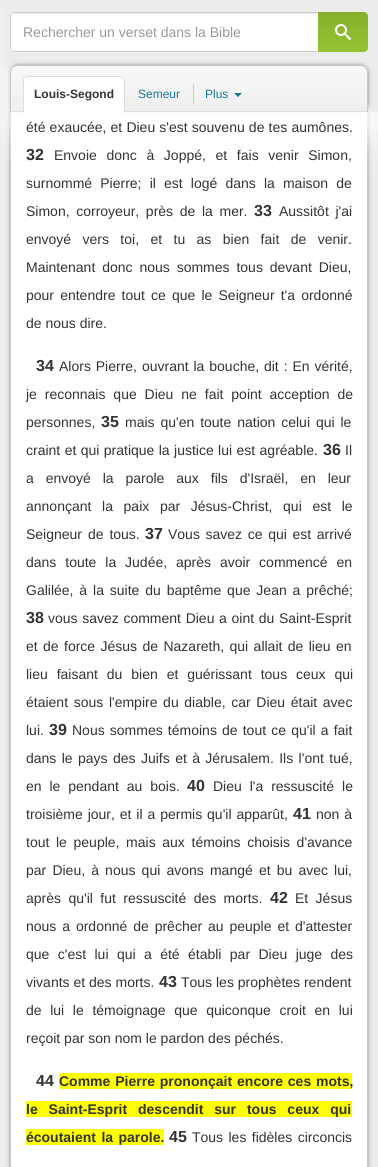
import math
import cairo

surface = cairo.ImageSurface(cairo.Format.RGB24, 378, 1167)
ctx = cairo.Context(surface)
options = cairo.FontOptions()
options.set_hint_metrics(cairo.HintMetrics.OFF)
options.set_hint_style(cairo.HintStyle.NONE)
ctx.set_font_options(options)
ctx.set_miter_limit(4)


def ink(r, g, b):
    ctx.set_source_rgb(r / 255, g / 255, b / 255)


def write(x, y, s, family, size, color, bold=False, italic=False):
    ctx.select_font_face(family, cairo.FontSlant.ITALIC if italic else cairo.FontSlant.NORMAL, cairo.FontWeight.BOLD if bold else cairo.FontWeight.NORMAL)
    ctx.set_font_size(size)
    ink(*color)
    ctx.move_to(x, y)
    ctx.show_text(s)


def write_spaced(x, y, s, letter, word):
    ctx.move_to(x, y)
    for ch in s:
        ctx.show_text(ch)
        ctx.rel_move_to(letter + word * (ch == ' '), 0)


def block(x, y, w, h, *color):
    ink(*color)
    ctx.rectangle(x, y, w, h)
    ctx.fill()


def round_path(x, y, w, h, r):
    ctx.new_sub_path()
    for i, (u, v) in enumerate([(x + w - r, y + h - r), (x + r, y + h - r), (x + r, y + r), (x + w - r, y + r)]):
        ctx.arc(u, v, r, i * math.pi / 2, (i + 1) * math.pi / 2)
    ctx.close_path()


def blur_box(x, y, w, h, r, blur, alpha):
    ctx.push_group_with_content(cairo.Content.ALPHA)
    ctx.set_operator(cairo.Operator.SOURCE)
    for i in range(15, -16, -2):
        e = blur * i / 6
        if min(w, h) + 2 * e > 0:
            ctx.set_source_rgba(0, 0, 0, alpha * math.erfc((i - 1) / 8.5) / 2)
            round_path(x - e, y - e, w + 2 * e, h + 2 * e, max(0, min(r + e + blur * .6, min(w, h) / 2 + e)))
            ctx.fill()
    ctx.mask(ctx.pop_group())


def paste(path, x, y, w, h):
    ctx.save()
    ctx.set_source_surface(cairo.ImageSurface.create_from_png(path), x, y)
    ctx.rectangle(x, y, w, h)
    ctx.fill()
    ctx.restore()


s1 = dict(family="Liberation Sans", size=14, color=(153, 153, 153))
s2 = dict(family="Liberation Sans", size=12, color=(51, 51, 51), bold=True)
s3 = dict(family="Liberation Sans", size=12, color=(28, 119, 153))
s4 = dict(family="Liberation Sans", size=16, color=(51, 51, 51), bold=True)
s5 = dict(family="Liberation Sans", size=14, color=(51, 51, 51))

ink(237, 236, 236)
ctx.paint()
ink(0, 0, 0)
blur_box(16, -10, 352, 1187, 4, 2, 0.4)
blur_box(10, -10, 352, 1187, 4, 2, 0.4)
block(11, 112, 356, 1055, 255, 255, 255)
ink(200, 200, 200)
ctx.set_fill_rule(cairo.FillRule.EVEN_ODD)
ctx.new_path()
ctx.move_to(10, -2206)
ctx.line_to(368, -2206)
ctx.line_to(368, 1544)
ctx.curve_to(368, 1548, 365, 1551, 361, 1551)
ctx.line_to(17, 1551)
ctx.curve_to(13, 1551, 10, 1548, 10, 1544)
ctx.close_path()
ctx.move_to(11, -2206)
ctx.line_to(367, -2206)
ctx.line_to(367, 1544)
ctx.curve_to(367, 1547, 364, 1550, 361, 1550)
ctx.line_to(17, 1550)
ctx.curve_to(14, 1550, 11, 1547, 11, 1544)
ctx.close_path()
ctx.fill()
ink(255, 255, 255)
blur_box(10, 20, 368, 112, 0, 20, 1)
ink(237, 236, 236)
blur_box(2, -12, 362, 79, 0, 4, 1)
block(10, 0, 368, 112, 237, 236, 236)
ink(255, 255, 255)
ctx.new_path()
ctx.move_to(14, 12)
ctx.line_to(319, 12)
ctx.line_to(319, 52)
ctx.line_to(14, 52)
ctx.curve_to(12, 52, 10, 50, 10, 48)
ctx.line_to(10, 16)
ctx.curve_to(10, 14, 12, 12, 14, 12)
ctx.close_path()
ctx.fill()
ink(236, 236, 236)
ctx.set_fill_rule(cairo.FillRule.WINDING)
ctx.new_path()
ctx.move_to(14, 14)
ctx.line_to(319, 14)
ctx.line_to(319, 13)
ctx.line_to(14, 13)
ctx.curve_to(12, 13, 11, 15, 11, 17)
ctx.curve_to(11, 15, 12, 14, 14, 14)
ctx.close_path()
ctx.fill()
ink(204, 204, 204)
ctx.set_fill_rule(cairo.FillRule.EVEN_ODD)
ctx.new_path()
ctx.move_to(14, 12)
ctx.line_to(319, 12)
ctx.line_to(319, 52)
ctx.line_to(14, 52)
ctx.curve_to(12, 52, 10, 50, 10, 48)
ctx.line_to(10, 16)
ctx.curve_to(10, 14, 12, 12, 14, 12)
ctx.close_path()
ctx.move_to(14, 13)
ctx.line_to(319, 13)
ctx.line_to(319, 51)
ctx.line_to(14, 51)
ctx.curve_to(12, 51, 11, 50, 11, 48)
ctx.line_to(11, 16)
ctx.curve_to(11, 14, 12, 13, 14, 13)
ctx.close_path()
ctx.fill()
write(23, 37, "Rechercher un verset dans la Bible", **s1)
gradient = cairo.LinearGradient(343, 12, 343, 52)
gradient.add_color_stop_rgba(0, 0.522, 0.69, 0.176, 1)
gradient.add_color_stop_rgba(1, 0.58, 0.769, 0.196, 1)
ctx.set_source(gradient)
ctx.new_path()
ctx.move_to(318, 12)
ctx.line_to(364, 12)
ctx.curve_to(366, 12, 368, 14, 368, 16)
ctx.line_to(368, 48)
ctx.curve_to(368, 50, 366, 52, 364, 52)
ctx.line_to(318, 52)
ctx.close_path()
ctx.fill()
paste("pic1.png", 335, 24, 16, 16)
ink(0, 0, 0)
blur_box(16, 68, 352, 41, 4, 2, 0.4)
blur_box(13, 65, 352, 41, 4, 2, 0.4)
ctx.save()
ctx.set_fill_rule(cairo.FillRule.WINDING)
ctx.new_path()
ctx.move_to(17, 65)
ctx.line_to(361, 65)
ctx.curve_to(365, 65, 368, 68, 368, 72)
ctx.line_to(368, 112)
ctx.line_to(10, 112)
ctx.line_to(10, 72)
ctx.curve_to(10, 68, 13, 65, 17, 65)
ctx.close_path()
ctx.clip()
gradient = cairo.LinearGradient(189, 66, 189, 112)
gradient.add_color_stop_rgba(0, 0.969, 0.969, 0.969, 1)
gradient.add_color_stop_rgba(1, 0.937, 0.937, 0.937, 1)
ctx.set_source(gradient)
ctx.rectangle(10, 66, 358, 45)
ctx.fill()
ctx.restore()
ink(200, 200, 200)
ctx.new_path()
ctx.move_to(17, 65)
ctx.line_to(361, 65)
ctx.curve_to(365, 65, 368, 68, 368, 72)
ctx.line_to(368, 112)
ctx.line_to(10, 112)
ctx.line_to(10, 72)
ctx.curve_to(10, 68, 13, 65, 17, 65)
ctx.close_path()
ctx.move_to(17, 66)
ctx.line_to(361, 66)
ctx.curve_to(364, 66, 367, 69, 367, 72)
ctx.line_to(367, 112)
ctx.line_to(11, 112)
ctx.line_to(11, 72)
ctx.curve_to(11, 69, 14, 66, 17, 66)
ctx.close_path()
ctx.fill()
block(11, 111, 356, 1, 221, 221, 221)
ink(255, 255, 255)
ctx.new_path()
ctx.move_to(27, 76)
ctx.line_to(121, 76)
ctx.curve_to(123, 76, 125, 78, 125, 80)
ctx.line_to(125, 113)
ctx.line_to(23, 113)
ctx.line_to(23, 80)
ctx.curve_to(23, 78, 25, 76, 27, 76)
ctx.close_path()
ctx.fill()
ink(221, 221, 221)
ctx.set_fill_rule(cairo.FillRule.WINDING)
ctx.new_path()
ctx.move_to(27, 76)
ctx.line_to(24, 77)
ctx.line_to(25, 78)
ctx.line_to(27, 77)
ctx.line_to(121, 77)
ctx.line_to(123, 78)
ctx.line_to(124, 77)
ctx.line_to(121, 76)
ctx.close_path()
ctx.fill()
ctx.new_path()
ctx.move_to(125, 113)
ctx.line_to(125, 80)
ctx.curve_to(125, 79, 124.5, 78, 124, 77)
ctx.line_to(123, 78)
ctx.curve_to(124, 78, 124, 79, 124, 80)
ctx.line_to(124, 112)
ctx.close_path()
ctx.fill()
ctx.new_path()
ctx.move_to(23, 113)
ctx.line_to(24, 112)
ctx.line_to(24, 80)
ctx.curve_to(24, 79, 24, 78, 25, 78)
ctx.line_to(24, 77)
ctx.curve_to(23.5, 78, 23, 79, 23, 80)
ctx.close_path()
ctx.fill()
write(34, 98, "Louis-Segond", **s2)
write(138, 98, "Semeur", **s3)
block(193, 84, 1, 20, 203, 203, 203)
write(205, 98, "Plus", **s3)
ctx.new_path()
ctx.move_to(234, 93)
ctx.line_to(242, 93)
ctx.line_to(238, 97)
ctx.close_path()
ctx.fill()
ctx.set_font_size(14)
ink(51, 51, 51)
write_spaced(26, 132, "été exaucée, et Dieu s'est souvenu de tes aumônes.", 0, 0.25)
write(26, 160, "32", **s4)
ctx.select_font_face("Liberation Sans")
ctx.set_font_size(14)
write_spaced(54, 160, "Envoie donc à Joppé, et fais venir Simon,", 0, 5.75)
write_spaced(26, 188, "surnommé Pierre; il est logé dans la maison de", 0, 4.25)
write_spaced(26, 216, "Simon, corroyeur, près de la mer.", 0, 2.75)
write(254, 216, "33", **s4)
ctx.select_font_face("Liberation Sans")
ctx.set_font_size(14)
write_spaced(279, 216, "Aussitôt j'ai", 0, 2.75)
write_spaced(26, 244, "envoyé vers toi, et tu as bien fait de venir.", 0, 7.5)
write_spaced(26, 272, "Maintenant donc nous sommes tous devant Dieu,", 0, 3)
write_spaced(26, 300, "pour entendre tout ce que le Seigneur t'a ordonné", 0, 2.25)
write(26, 328, "de nous dire.", **s5)
write(36, 371, "34", **s4)
ctx.select_font_face("Liberation Sans")
ctx.set_font_size(14)
write_spaced(59, 371, "Alors Pierre, ouvrant la bouche, dit : En vérité,", 0, 1)
write_spaced(26, 399, "je reconnais que Dieu ne fait point acception de", 0, 4)
write(26, 427, "personnes,", **s5)
write(101, 427, "35", **s4)
ctx.select_font_face("Liberation Sans")
ctx.set_font_size(14)
write_spaced(125, 427, "mais qu'en toute nation celui qui le", 0, 2)
write_spaced(26, 455, "craint et qui pratique la justice lui est agréable.", 0, 0.5)
write(323, 455, "36", **s4)
write(345, 455, "Il", **s5)
write_spaced(26, 483, "a envoyé la parole aux fils d'Israël, en leur", 0, 8)
write_spaced(26, 511, "annonçant la paix par Jésus-Christ, qui est le", 0, 6.75)
write_spaced(26, 539, "Seigneur de tous.", 0, 2)
write(145, 539, "37", **s4)
ctx.select_font_face("Liberation Sans")
ctx.set_font_size(14)
write_spaced(168, 539, "Vous savez ce qui est arrivé", 0, 1.75)
write_spaced(26, 567, "dans toute la Judée, après avoir commencé en", 0, 5)
write_spaced(26, 595, "Galilée, à la suite du baptême que Jean a prêché;", 0, 2)
write(26, 623, "38", **s4)
ctx.select_font_face("Liberation Sans")
ctx.set_font_size(14)
write_spaced(48, 623, "vous savez comment Dieu a oint du Saint-Esprit", 0, 0.75)
write_spaced(26, 651, "et de force Jésus de Nazareth, qui allait de lieu en", 0, 1.5)
write_spaced(26, 679, "lieu faisant du bien et guérissant tous ceux qui", 0, 5)
write_spaced(26, 707, "étaient sous l'empire du diable, car Dieu était avec", 0, 1.75)
write(26, 735, "lui.", **s5)
write(49, 735, "39", **s4)
ctx.select_font_face("Liberation Sans")
ctx.set_font_size(14)
write_spaced(72, 735, "Nous sommes témoins de tout ce qu'il a fait", 0, 1.25)
write_spaced(26, 763, "dans le pays des Juifs et à Jérusalem. Ils l'ont tué,", 0, 1.5)
write_spaced(26, 791, "en le pendant au bois.", 0, 4)
write(187, 791, "40", **s4)
ctx.select_font_face("Liberation Sans")
ctx.set_font_size(14)
write_spaced(213, 791, "Dieu l'a ressuscité le", 0, 4)
write_spaced(26, 819, "troisième jour, et il a permis qu'il apparût,", 0, 1)
write(293, 819, "41", **s4)
ctx.select_font_face("Liberation Sans")
ctx.set_font_size(14)
write_spaced(316, 819, "non à", 0, 1)
write_spaced(26, 847, "tout le peuple, mais aux témoins choisis d'avance", 0, 2.75)
write_spaced(26, 875, "par Dieu, à nous qui avons mangé et bu avec lui,", 0, 2.25)
write_spaced(26, 903, "après qu'il fut ressuscité des morts.", 0, 3.5)
write(270, 903, "42", **s4)
ctx.select_font_face("Liberation Sans")
ctx.set_font_size(14)
write_spaced(295, 903, "Et Jésus", 0, 3.5)
write_spaced(26, 931, "nous a ordonné de prêcher au peuple et d'attester", 0, 2)
write_spaced(26, 959, "que c'est lui qui a été établi par Dieu juge des", 0, 4.5)
write(26, 987, "vivants et des morts.", **s5)
write(159, 987, "43", **s4)
write(181, 987, "Tous les prophètes rendent", **s5)
write_spaced(26, 1015, "de lui le témoignage que quiconque croit en lui", 0, 4.75)
write(26, 1043, "reçoit par son nom le pardon des péchés.", **s5)
write(36, 1086, "44", **s4)
block(59, 1073, 293, 16, 255, 255, 0)
ctx.set_font_size(14)
ink(51, 51, 51)
write_spaced(59, 1086, "Comme Pierre prononçait encore ces mots,", 0, 1)
block(26, 1101, 326, 16, 255, 255, 0)
ink(51, 51, 51)
write_spaced(26, 1114, "le Saint-Esprit descendit sur tous ceux qui", 0, 7)
block(26, 1129, 138, 16, 255, 255, 0)
ink(51, 51, 51)
write_spaced(26, 1142, "écoutaient la parole.", 0, 1.5)
write(169, 1142, "45", **s4)
ctx.select_font_face("Liberation Sans")
ctx.set_font_size(14)
write_spaced(192, 1142, "Tous les fidèles circoncis", 0, 1.5)
surface.write_to_png("screenshot.png")
